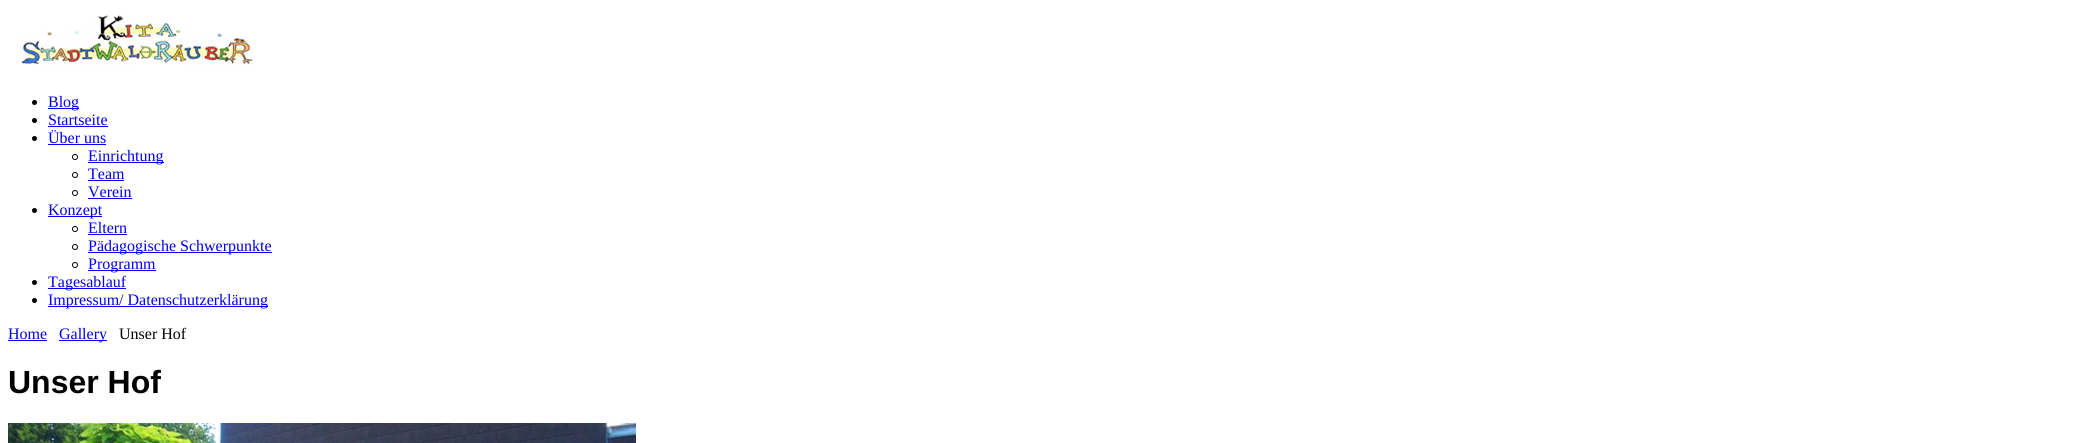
import math
import cairo

surface = cairo.ImageSurface(cairo.Format.RGB24, 2080, 443)
ctx = cairo.Context(surface)
options = cairo.FontOptions()
options.set_hint_metrics(cairo.HintMetrics.OFF)
options.set_hint_style(cairo.HintStyle.NONE)
ctx.set_font_options(options)
ctx.set_miter_limit(4)


def ink(r, g, b):
    ctx.set_source_rgb(r / 255, g / 255, b / 255)


def write(x, y, s, family, size, color, bold=False, italic=False):
    ctx.select_font_face(family, cairo.FontSlant.ITALIC if italic else cairo.FontSlant.NORMAL, cairo.FontWeight.BOLD if bold else cairo.FontWeight.NORMAL)
    ctx.set_font_size(size)
    ink(*color)
    ctx.move_to(x, y)
    ctx.show_text(s)


def block(x, y, w, h, *color):
    ink(*color)
    ctx.rectangle(x, y, w, h)
    ctx.fill()


def paste(path, x, y, w, h):
    ctx.save()
    ctx.set_source_surface(cairo.ImageSurface.create_from_png(path), x, y)
    ctx.rectangle(x, y, w, h)
    ctx.fill()
    ctx.restore()


s1 = dict(family="Liberation Serif", size=16, color=(0, 0, 238))
s2 = dict(family="Liberation Serif", size=16, color=(0, 0, 0))
s3 = dict(family="Liberation Sans", size=32, color=(0, 0, 0), bold=True)

ink(255, 255, 255)
ctx.paint()
paste("pic1.png", 21, 15, 232, 54)
ink(0, 0, 0)
ctx.arc(34.5, 102.5, 2.5, 0, 2 * math.pi)
ctx.fill()
block(48, 108, 31, 1, 0, 0, 238)
write(48, 107, "Blog", **s1)
ink(0, 0, 0)
ctx.new_path()
ctx.arc(34.5, 120.5, 2.5, 0, 2 * math.pi)
ctx.fill()
write(48, 125, "Startseite", **s1)
block(48, 126, 60, 1, 0, 0, 238)
ink(0, 0, 0)
ctx.new_path()
ctx.arc(34.5, 138.5, 2.5, 0, 2 * math.pi)
ctx.fill()
write(48, 143, "Über uns", **s1)
block(48, 144, 58, 1, 0, 0, 238)
ctx.new_path()
ctx.arc(75, 157, 2.5, 0, 2 * math.pi)
ink(0, 0, 0)
ctx.set_line_width(1)
ctx.stroke()
block(88, 162, 76, 1, 0, 0, 238)
write(88, 161, "Einrichtung", **s1)
ctx.new_path()
ctx.arc(75, 175, 2.5, 0, 2 * math.pi)
ink(0, 0, 0)
ctx.stroke()
write(88, 179, "Team", **s1)
block(88, 180, 36, 1, 0, 0, 238)
ctx.new_path()
ctx.arc(75, 193, 2.5, 0, 2 * math.pi)
ink(0, 0, 0)
ctx.stroke()
write(88, 197, "Verein", **s1)
block(88, 198, 44, 1, 0, 0, 238)
ink(0, 0, 0)
ctx.new_path()
ctx.arc(34.5, 210.5, 2.5, 0, 2 * math.pi)
ctx.fill()
block(48, 216, 54, 1, 0, 0, 238)
write(48, 215, "Konzept", **s1)
ctx.new_path()
ctx.arc(75, 229, 2.5, 0, 2 * math.pi)
ink(0, 0, 0)
ctx.stroke()
write(88, 233, "Eltern", **s1)
block(88, 234, 39, 1, 0, 0, 238)
ctx.new_path()
ctx.arc(75, 247, 2.5, 0, 2 * math.pi)
ink(0, 0, 0)
ctx.stroke()
block(88, 252, 184, 1, 0, 0, 238)
write(88, 251, "Pädagogische Schwerpunkte", **s1)
ctx.new_path()
ctx.arc(75, 265, 2.5, 0, 2 * math.pi)
ink(0, 0, 0)
ctx.stroke()
block(88, 270, 68, 1, 0, 0, 238)
write(88, 269, "Programm", **s1)
ink(0, 0, 0)
ctx.new_path()
ctx.arc(34.5, 282.5, 2.5, 0, 2 * math.pi)
ctx.fill()
block(48, 288, 78, 1, 0, 0, 238)
write(48, 287, "Tagesablauf", **s1)
ink(0, 0, 0)
ctx.new_path()
ctx.arc(34.5, 300.5, 2.5, 0, 2 * math.pi)
ctx.fill()
block(48, 306, 220, 1, 0, 0, 238)
write(48, 305, "Impressum/ Datenschutzerklärung", **s1)
write(8, 339, "Home", **s1)
block(8, 340, 39, 1, 0, 0, 238)
block(59, 340, 48, 1, 0, 0, 238)
write(59, 339, "Gallery", **s1)
write(119, 339, "Unser Hof", **s2)
write(8, 393, "Unser Hof", **s3)
paste("pic2.png", 8, 423, 628, 20)
surface.write_to_png("screenshot.png")
